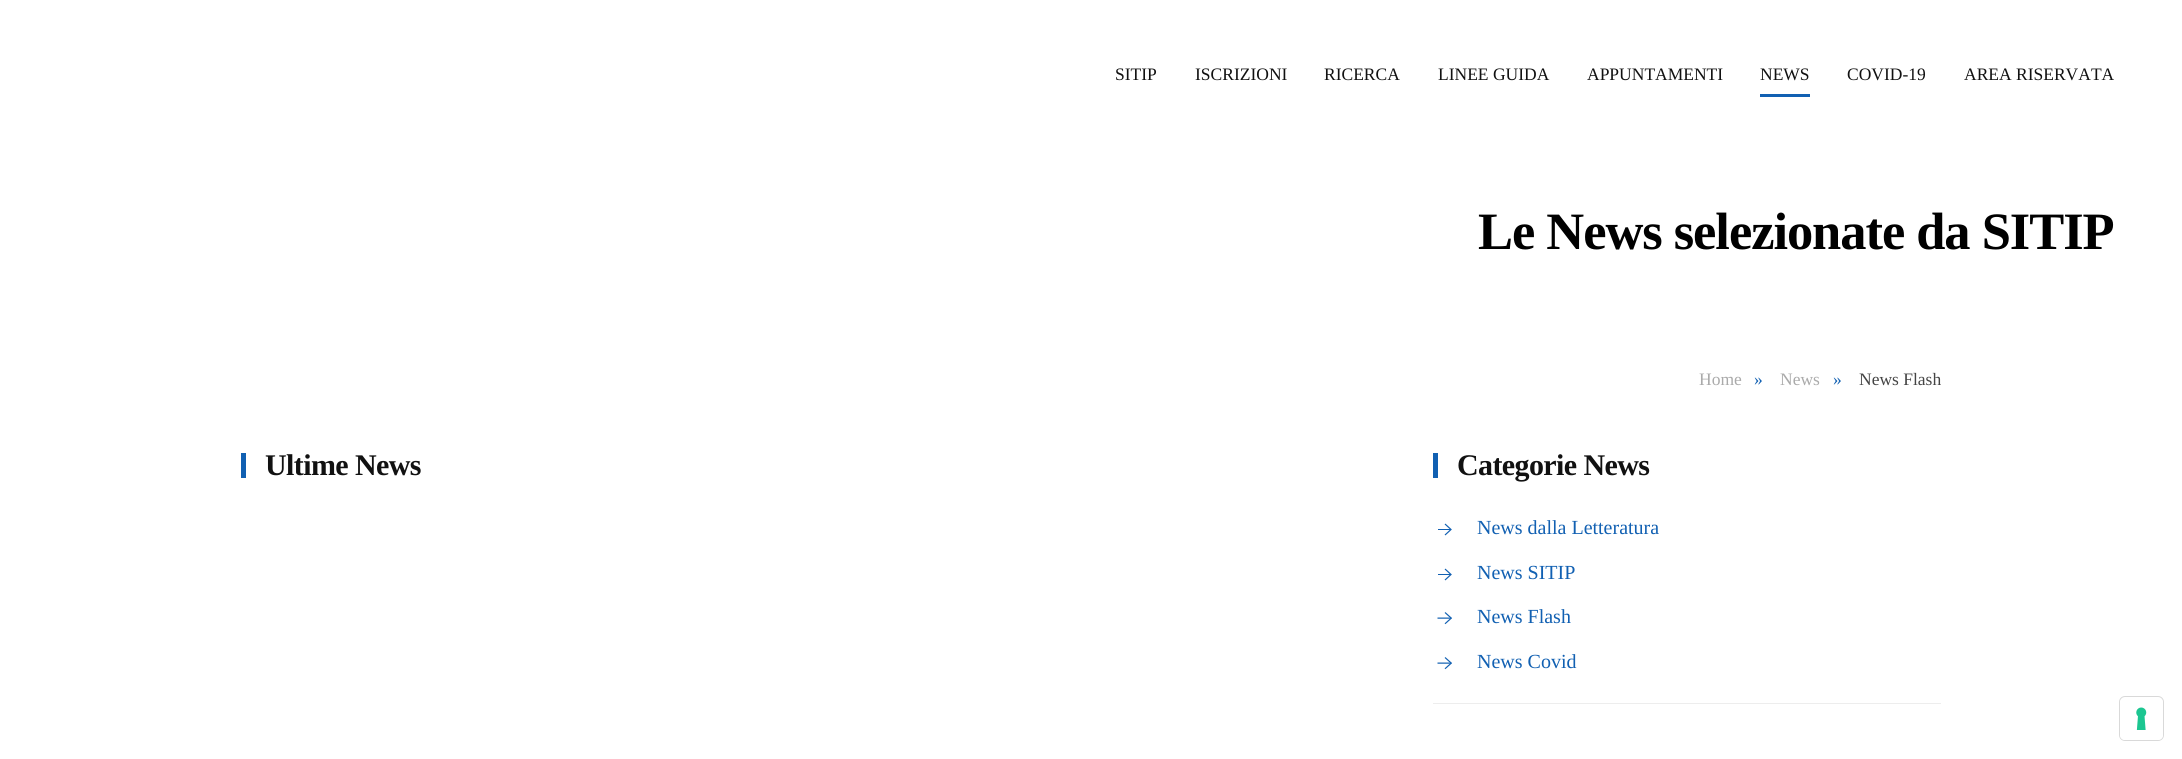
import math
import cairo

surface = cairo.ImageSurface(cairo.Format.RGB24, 2182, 759)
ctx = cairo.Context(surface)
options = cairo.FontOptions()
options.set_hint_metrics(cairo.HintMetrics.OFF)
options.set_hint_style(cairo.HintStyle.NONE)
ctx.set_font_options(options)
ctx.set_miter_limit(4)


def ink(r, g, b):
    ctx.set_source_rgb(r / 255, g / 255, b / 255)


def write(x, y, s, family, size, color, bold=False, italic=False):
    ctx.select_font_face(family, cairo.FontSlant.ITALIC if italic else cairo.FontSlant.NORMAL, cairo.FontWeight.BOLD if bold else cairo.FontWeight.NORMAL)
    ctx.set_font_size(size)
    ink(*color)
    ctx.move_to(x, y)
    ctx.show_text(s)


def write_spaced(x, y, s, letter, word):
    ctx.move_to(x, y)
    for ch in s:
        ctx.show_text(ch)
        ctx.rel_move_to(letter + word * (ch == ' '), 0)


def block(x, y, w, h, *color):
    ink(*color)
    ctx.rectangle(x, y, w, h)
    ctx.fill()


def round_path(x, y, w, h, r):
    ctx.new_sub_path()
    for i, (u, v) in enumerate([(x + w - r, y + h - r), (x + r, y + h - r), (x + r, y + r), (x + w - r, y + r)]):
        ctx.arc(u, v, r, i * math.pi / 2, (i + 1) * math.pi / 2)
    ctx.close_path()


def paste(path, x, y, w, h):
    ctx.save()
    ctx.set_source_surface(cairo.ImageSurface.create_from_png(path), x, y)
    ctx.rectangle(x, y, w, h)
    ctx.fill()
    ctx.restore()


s1 = dict(family="Liberation Serif", size=17.5, color=(17, 17, 17))
s2 = dict(family="Liberation Serif", size=17.5, color=(170, 170, 170))
s3 = dict(family="Liberation Serif", size=17.5, color=(17, 96, 178))
s4 = dict(family="Liberation Serif", size=17.5, color=(68, 68, 68))
s5 = dict(family="Liberation Serif", size=20, color=(17, 96, 178))

ink(255, 255, 255)
ctx.paint()
write(1115, 80, "SITIP", **s1)
write(1195, 80, "ISCRIZIONI", **s1)
write(1324, 80, "RICERCA", **s1)
write(1438, 80, "LINEE GUIDA", **s1)
write(1587, 80, "APPUNTAMENTI", **s1)
write(1760, 80, "NEWS", **s1)
block(1760, 94, 50, 3, 17, 96, 178)
write(1847, 80, "COVID-19", **s1)
write(1964, 80, "AREA RISERVATA", **s1)
ctx.select_font_face("Liberation Serif", cairo.FontSlant.NORMAL, cairo.FontWeight.BOLD)
ctx.set_font_size(52.5)
ink(0, 0, 0)
write_spaced(1478, 249, "Le News selezionate da SITIP", -1.05, 0)
write(1699, 385, "Home", **s2)
write(1754, 385, "»", **s3)
write(1780, 385, "News", **s2)
write(1833, 385, "»", **s3)
write(1859, 385, "News Flash", **s4)
block(241, 453, 5, 25, 17, 96, 178)
ctx.select_font_face("Liberation Serif", cairo.FontSlant.NORMAL, cairo.FontWeight.BOLD)
ctx.set_font_size(30)
ink(17, 17, 17)
write_spaced(265, 475, "Ultime News", -0.6, 0)
block(1433, 453, 5, 25, 17, 96, 178)
ink(17, 17, 17)
write_spaced(1457, 475, "Categorie News", -0.6, 0)
ctx.new_path()
ctx.move_to(1445, 524)
ctx.line_to(1451, 529.5)
ctx.line_to(1445, 535)
ink(17, 96, 178)
ctx.set_line_width(1.2)
ctx.stroke()
block(1438, 529, 13, 1, 17, 96, 178)
write(1477, 534, "News dalla Letteratura", **s5)
ctx.new_path()
ctx.move_to(1445, 569)
ctx.line_to(1451, 574.5)
ctx.line_to(1445, 580)
ctx.stroke()
block(1438, 574, 13, 1, 17, 96, 178)
write(1477, 579, "News SITIP", **s5)
paste("pic1.png", 1437, 612, 15, 13)
write(1477, 623, "News Flash", **s5)
paste("pic1.png", 1437, 657, 15, 13)
write(1477, 668, "News Covid", **s5)
block(1433, 703, 508, 1, 237, 237, 237)
round_path(2119.5, 696.5, 44, 44, 5.5)
ink(217, 217, 217)
ctx.set_line_width(1)
ctx.stroke()
ink(255, 255, 255)
round_path(2120, 698, 43, 42, 5)
ctx.fill()
paste("pic2.png", 2136, 707, 11, 23)
surface.write_to_png("screenshot.png")
